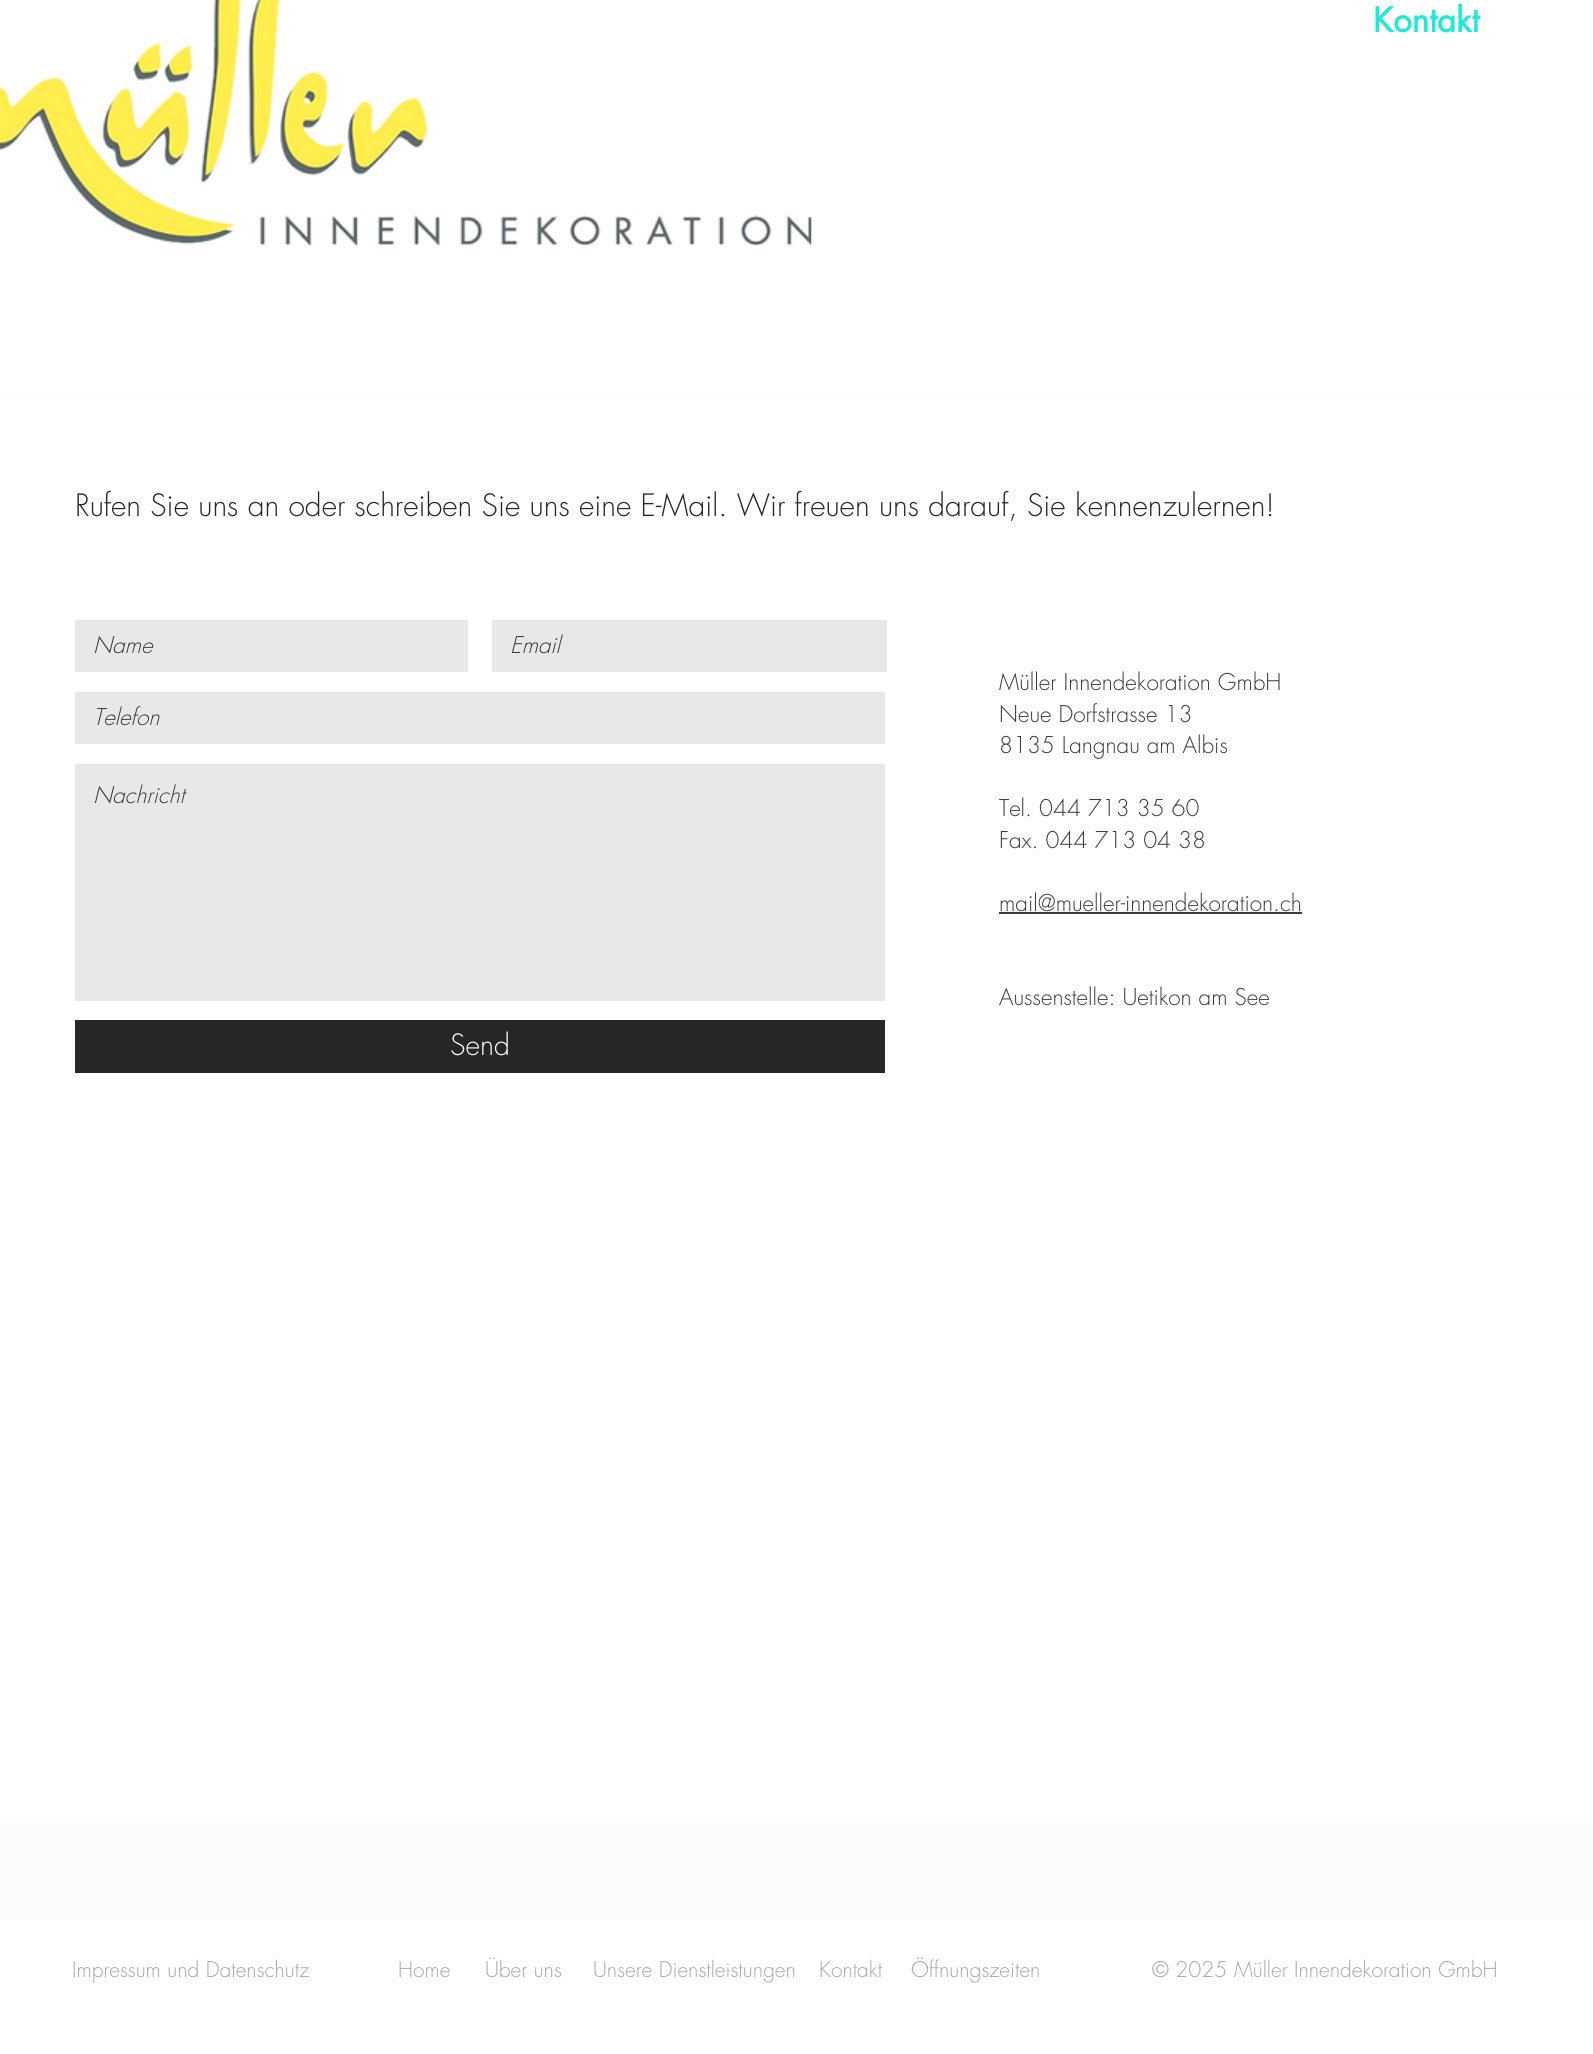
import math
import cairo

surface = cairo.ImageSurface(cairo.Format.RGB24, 1593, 2054)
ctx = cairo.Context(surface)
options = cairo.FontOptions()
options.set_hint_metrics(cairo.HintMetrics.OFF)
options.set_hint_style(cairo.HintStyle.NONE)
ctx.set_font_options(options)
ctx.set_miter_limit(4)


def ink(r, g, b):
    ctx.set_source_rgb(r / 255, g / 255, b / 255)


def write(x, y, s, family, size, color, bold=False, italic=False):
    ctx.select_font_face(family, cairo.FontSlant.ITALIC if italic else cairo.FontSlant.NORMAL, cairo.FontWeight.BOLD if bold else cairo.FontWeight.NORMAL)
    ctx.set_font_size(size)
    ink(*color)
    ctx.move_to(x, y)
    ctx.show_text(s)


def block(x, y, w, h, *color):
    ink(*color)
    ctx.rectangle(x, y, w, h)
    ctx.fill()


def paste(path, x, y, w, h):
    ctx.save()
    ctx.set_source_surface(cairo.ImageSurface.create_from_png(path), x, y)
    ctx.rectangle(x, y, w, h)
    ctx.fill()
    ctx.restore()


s1 = dict(family="futura", size=33, color=(33, 233, 216), bold=True)
s2 = dict(family="futura Light", size=30, color=(38, 38, 38))
s3 = dict(family="futura Light", size=22.5, color=(59, 59, 59), italic=True)
s4 = dict(family="futura Light", size=28.5, color=(252, 252, 252))
s5 = dict(family="futura Light", size=22.5, color=(59, 59, 59))
s6 = dict(family="futura Light", size=21, color=(166, 166, 166))

ink(252, 252, 252)
ctx.paint()
block(0, 0, 1593, 395, 255, 255, 255)
paste("pic1.png", 0, 0, 812, 246)
write(1373, 32, "Kontakt", **s1)
block(0, 398, 1593, 1425, 255, 255, 255)
write(75, 516, "Rufen Sie uns an oder schreiben Sie uns eine E-Mail. Wir freuen uns darauf, Sie kennenzulernen!", **s2)
block(75, 620, 393, 52, 232, 232, 232)
write(93, 653, "Name", **s3)
block(492, 620, 395, 52, 232, 232, 232)
write(510, 653, "Email", **s3)
block(75, 692, 810, 52, 232, 232, 232)
write(93, 725, "Telefon", **s3)
block(75, 764, 810, 237, 232, 232, 232)
write(93, 803, "Nachricht", **s3)
block(75, 1020, 810, 53, 38, 38, 38)
write(450, 1055, "Send", **s4)
write(999, 690, "Müller Innendekoration GmbH", **s5)
write(999, 722, "Neue Dorfstrasse 13", **s5)
write(999, 753, "8135 Langnau am Albis", **s5)
write(999, 816, "Tel. 044 713 35 60", **s5)
write(999, 848, "Fax. 044 713 04 38", **s5)
write(999, 911, "mail@mueller-innendekoration.ch", **s5)
block(999, 912, 303, 2, 59, 59, 59)
write(999, 1005, "Aussenstelle: Uetikon am See", **s5)
block(0, 1919, 1593, 135, 255, 255, 255)
write(72, 1977, "Impressum und Datenschutz", **s6)
write(398, 1977, "Home", **s6)
write(485, 1977, "Über uns", **s6)
write(593, 1977, "Unsere Dienstleistungen", **s6)
write(819, 1977, "Kontakt", **s6)
write(911, 1977, "Öffnungszeiten", **s6)
write(1152, 1977, "© 2025 Müller Innendekoration GmbH", **s6)
surface.write_to_png("screenshot.png")
